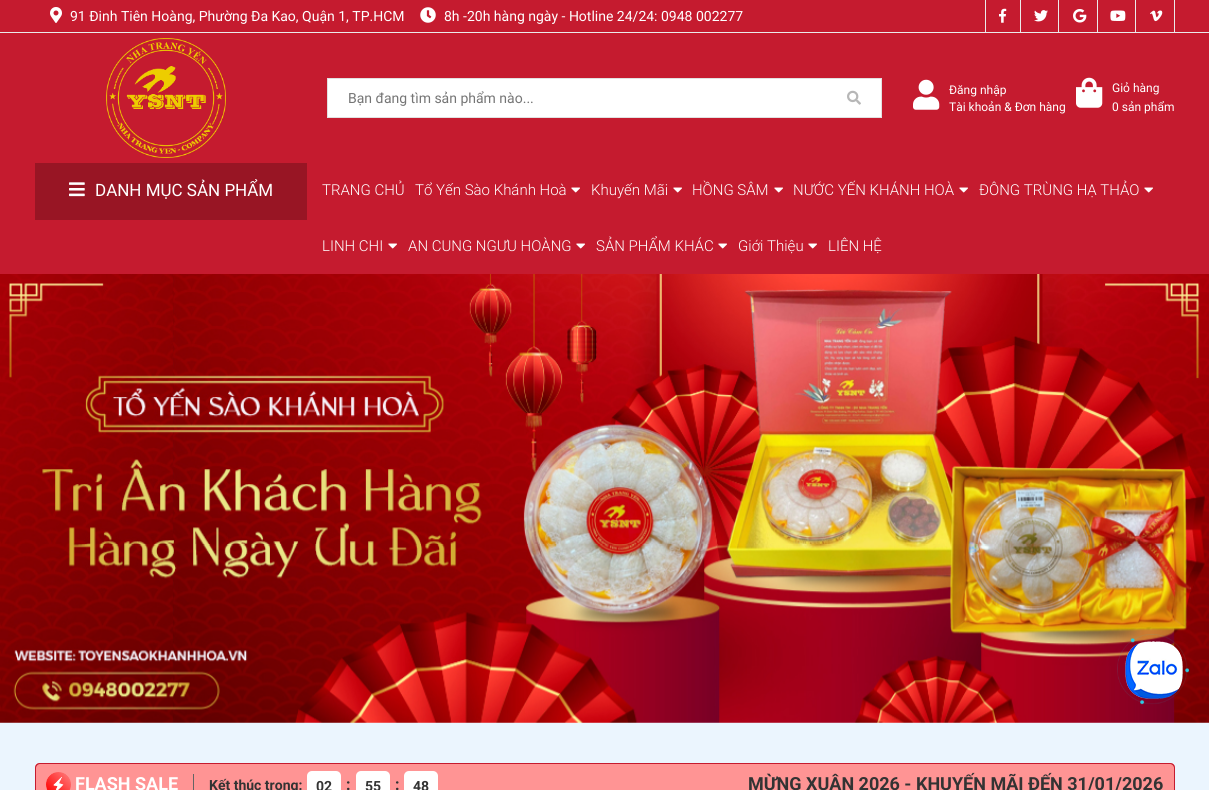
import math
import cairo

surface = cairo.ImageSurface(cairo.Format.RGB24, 1209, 790)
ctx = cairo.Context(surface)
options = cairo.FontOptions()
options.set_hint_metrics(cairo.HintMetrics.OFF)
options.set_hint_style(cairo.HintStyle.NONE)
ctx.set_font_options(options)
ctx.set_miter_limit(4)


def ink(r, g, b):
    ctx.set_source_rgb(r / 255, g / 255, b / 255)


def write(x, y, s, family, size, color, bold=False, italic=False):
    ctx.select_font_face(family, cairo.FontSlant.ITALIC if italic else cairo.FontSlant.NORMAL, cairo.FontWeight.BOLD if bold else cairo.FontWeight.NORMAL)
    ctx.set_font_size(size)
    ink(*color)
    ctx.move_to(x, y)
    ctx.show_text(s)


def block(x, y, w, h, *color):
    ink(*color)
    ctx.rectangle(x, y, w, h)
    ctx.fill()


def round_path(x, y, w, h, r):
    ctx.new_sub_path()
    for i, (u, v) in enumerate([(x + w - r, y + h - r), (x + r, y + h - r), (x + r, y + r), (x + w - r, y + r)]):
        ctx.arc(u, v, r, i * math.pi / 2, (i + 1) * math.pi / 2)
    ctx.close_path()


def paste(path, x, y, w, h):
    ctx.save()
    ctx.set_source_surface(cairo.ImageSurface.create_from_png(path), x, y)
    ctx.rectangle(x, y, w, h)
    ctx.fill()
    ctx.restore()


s1 = dict(family="Roboto", size=14, color=(255, 255, 255))
s2 = dict(family="Roboto", size=14, color=(117, 117, 117))
s3 = dict(family="Roboto", size=12, color=(255, 255, 255))
s4 = dict(family="Roboto", size=17, color=(255, 255, 255))
s5 = dict(family="Roboto Light", size=15, color=(255, 255, 255))
s6 = dict(family="Roboto", size=18, color=(255, 255, 255), bold=True)
s7 = dict(family="Roboto", size=14, color=(51, 51, 51), bold=True)
s8 = dict(family="Roboto", size=16, color=(51, 51, 51), bold=True)
s9 = dict(family="Roboto", size=18, color=(51, 51, 51), bold=True)

ink(235, 245, 254)
ctx.paint()
block(0, 0, 1209, 32, 197, 27, 47)
block(0, 32, 1209, 1, 235, 235, 235)
paste("pic1.png", 50, 7, 12, 16)
write(70, 21, "91 Đinh Tiên Hoàng, Phường Đa Kao, Quận 1, TP.HCM", **s1)
paste("pic2.png", 420, 7, 16, 16)
write(444, 21, "8h -20h hàng ngày - Hotline 24/24: 0948 002277", **s1)
block(985, 0, 1, 32, 235, 235, 235)
block(1020, 0, 1, 32, 235, 235, 235)
paste("pic3.png", 999, 8, 8, 15)
block(1058, 0, 1, 32, 235, 235, 235)
paste("pic4.png", 1034, 10, 14, 12)
block(1097, 0, 1, 32, 235, 235, 235)
paste("pic5.png", 1073, 9, 14, 14)
block(1135, 0, 1, 32, 235, 235, 235)
paste("pic6.png", 1110, 10, 16, 11)
block(1174, 0, 1, 32, 235, 235, 235)
paste("pic7.png", 1150, 10, 13, 12)
block(0, 33, 1209, 241, 197, 27, 47)
paste("pic8.png", 106, 38, 120, 120)
ink(255, 255, 255)
ctx.rectangle(327.5, 78.5, 500, 39)
ctx.fill_preserve()
ink(225, 225, 225)
ctx.set_line_width(1)
ctx.stroke()
write(348, 103, "Bạn đang tìm sản phẩm nào...", **s2)
block(827, 79, 54, 38, 255, 255, 255)
block(827, 78, 55, 1, 225, 225, 225)
block(881, 78, 1, 40, 225, 225, 225)
block(827, 117, 55, 1, 225, 225, 225)
paste("pic9.png", 847, 90, 14, 15)
paste("pic10.png", 913, 79, 27, 31)
write(949, 94, "Đăng nhập", **s3)
write(949, 111, "Tài khoản & Đơn hàng", **s3)
paste("pic11.png", 1076, 77, 27, 31)
write(1112, 92, "Giỏ hàng", **s3)
write(1112, 111, "0 sản phẩm", **s3)
block(35, 163, 272, 57, 152, 21, 36)
paste("pic12.png", 69, 182, 16, 15)
write(95, 196, "DANH MỤC SẢN PHẨM", **s4)
write(322, 195, "TRANG CHỦ", **s5)
write(415, 195, "Tổ Yến Sào Khánh Hoà", **s5)
paste("pic13.png", 571, 187, 9, 6)
write(591, 195, "Khuyến Mãi", **s5)
paste("pic13.png", 673, 187, 9, 6)
write(692, 195, "HỒNG SÂM", **s5)
paste("pic13.png", 774, 187, 9, 6)
write(793, 195, "NƯỚC YẾN KHÁNH HOÀ", **s5)
paste("pic13.png", 959, 187, 9, 6)
write(979, 195, "ĐÔNG TRÙNG HẠ THẢO", **s5)
paste("pic13.png", 1144, 187, 9, 6)
write(322, 251, "LINH CHI", **s5)
paste("pic13.png", 388, 243, 9, 6)
write(408, 251, "AN CUNG NGƯU HOÀNG", **s5)
paste("pic13.png", 576, 243, 9, 6)
write(596, 251, "SẢN PHẨM KHÁC", **s5)
paste("pic13.png", 718, 243, 9, 6)
write(738, 251, "Giới Thiệu", **s5)
paste("pic13.png", 808, 243, 9, 6)
write(828, 251, "LIÊN HỆ", **s5)
paste("pic14.png", 0, 274, 1209, 449)
paste("pic15.png", 1117, 634, 72, 71)
paste("pic16.png", 1125, 641, 58, 58)
ink(255, 148, 148)
ctx.new_path()
ctx.move_to(40, 763)
ctx.line_to(1170, 763)
ctx.curve_to(1173, 763, 1175, 765, 1175, 768)
ctx.line_to(1175, 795)
ctx.line_to(35, 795)
ctx.line_to(35, 768)
ctx.curve_to(35, 765, 37, 763, 40, 763)
ctx.close_path()
ctx.fill()
ink(197, 27, 47)
ctx.set_fill_rule(cairo.FillRule.EVEN_ODD)
ctx.new_path()
ctx.move_to(40, 763)
ctx.line_to(1170, 763)
ctx.curve_to(1173, 763, 1175, 765, 1175, 768)
ctx.line_to(1175, 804)
ctx.line_to(35, 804)
ctx.line_to(35, 768)
ctx.curve_to(35, 765, 37, 763, 40, 763)
ctx.close_path()
ctx.move_to(40, 764)
ctx.line_to(1170, 764)
ctx.curve_to(1172, 764, 1174, 766, 1174, 768)
ctx.line_to(1174, 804)
ctx.line_to(36, 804)
ctx.line_to(36, 768)
ctx.curve_to(36, 766, 38, 764, 40, 764)
ctx.close_path()
ctx.fill()
paste("pic17.png", 46, 772, 25, 18)
write(75, 790, "FLASH SALE", **s6)
block(193, 774, 1, 16, 100, 100, 100)
write(209, 790, "Kết thúc trong:", **s7)
ink(255, 255, 255)
round_path(307, 771, 34, 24, 5)
ctx.fill()
write(316, 791, "02", **s7)
write(346, 790, ":", **s8)
ink(255, 255, 255)
round_path(356, 771, 34, 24, 5)
ctx.fill()
write(365, 791, "55", **s7)
write(395, 790, ":", **s8)
ink(255, 255, 255)
round_path(404, 771, 34, 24, 5)
ctx.fill()
write(413, 791, "48", **s7)
write(748, 790, "MỪNG XUÂN 2026 - KHUYẾN MÃI ĐẾN 31/01/2026", **s9)
surface.write_to_png("screenshot.png")
